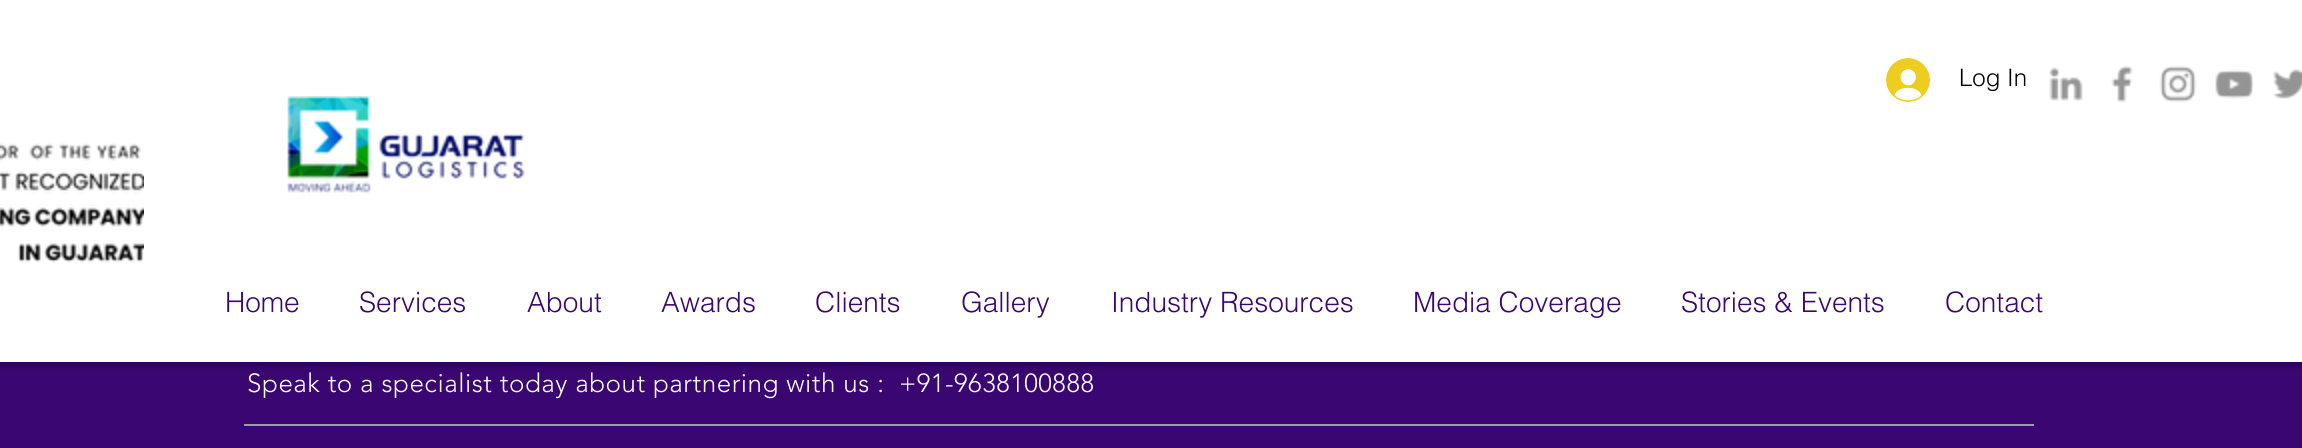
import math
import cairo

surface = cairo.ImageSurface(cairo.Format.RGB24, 2302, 448)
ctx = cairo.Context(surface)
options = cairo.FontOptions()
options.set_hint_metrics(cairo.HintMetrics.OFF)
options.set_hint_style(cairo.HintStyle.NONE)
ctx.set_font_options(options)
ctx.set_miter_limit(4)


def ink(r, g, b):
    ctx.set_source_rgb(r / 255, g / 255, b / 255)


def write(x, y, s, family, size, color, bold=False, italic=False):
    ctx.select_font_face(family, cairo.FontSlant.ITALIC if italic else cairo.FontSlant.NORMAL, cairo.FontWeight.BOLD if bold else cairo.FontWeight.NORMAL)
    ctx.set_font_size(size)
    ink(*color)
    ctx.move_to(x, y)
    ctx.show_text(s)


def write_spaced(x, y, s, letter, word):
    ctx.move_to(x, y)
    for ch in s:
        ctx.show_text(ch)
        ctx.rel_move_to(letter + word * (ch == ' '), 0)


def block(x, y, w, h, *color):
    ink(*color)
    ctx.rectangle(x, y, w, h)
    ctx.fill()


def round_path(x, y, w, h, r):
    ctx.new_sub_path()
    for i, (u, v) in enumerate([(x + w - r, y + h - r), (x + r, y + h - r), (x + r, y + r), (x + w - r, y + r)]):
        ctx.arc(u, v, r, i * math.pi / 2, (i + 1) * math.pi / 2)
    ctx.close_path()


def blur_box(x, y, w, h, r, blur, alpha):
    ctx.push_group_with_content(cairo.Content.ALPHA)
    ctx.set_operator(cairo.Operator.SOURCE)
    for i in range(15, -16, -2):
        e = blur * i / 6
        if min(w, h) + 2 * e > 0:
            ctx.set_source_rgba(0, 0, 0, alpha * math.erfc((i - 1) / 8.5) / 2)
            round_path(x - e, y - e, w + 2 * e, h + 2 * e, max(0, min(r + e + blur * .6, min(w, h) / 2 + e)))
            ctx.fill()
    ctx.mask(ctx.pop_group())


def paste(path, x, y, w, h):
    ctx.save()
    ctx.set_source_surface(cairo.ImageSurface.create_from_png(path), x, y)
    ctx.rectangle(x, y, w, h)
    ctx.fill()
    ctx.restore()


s1 = dict(family="helvetica Light", size=24, color=(0, 0, 0))
s2 = dict(family="helvetica Light", size=28, color=(58, 6, 113))

ink(58, 6, 113)
ctx.paint()
ink(0, 0, 0)
blur_box(0, 0, 2302, 362, 0, 5, 0.5)
block(0, 0, 2302, 362, 255, 255, 255)
paste("pic1.png", 1886, 58, 44, 44)
write(1959, 86, "Log In", **s1)
paste("pic2.png", 2049, 67, 34, 34)
paste("pic3.png", 2111, 65, 22, 38)
paste("pic4.png", 2159, 65, 38, 38)
paste("pic5.png", 2215, 69, 39, 30)
paste("pic6.png", 2273, 69, 29, 30)
paste("pic7.png", 0, 143, 144, 120)
paste("pic8.png", 287, 96, 238, 97)
write(225, 312, "Home", **s2)
write(359, 312, "Services", **s2)
write(527, 312, "About", **s2)
write(661, 312, "Awards", **s2)
write(815, 312, "Clients", **s2)
write(961, 312, "Gallery", **s2)
write(1111, 312, "Industry Resources", **s2)
write(1413, 312, "Media Coverage", **s2)
write(1681, 312, "Stories & Events", **s2)
write(1945, 312, "Contact", **s2)
ctx.select_font_face("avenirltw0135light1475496 Light")
ctx.set_font_size(26)
ink(255, 255, 255)
write_spaced(247, 392, "Speak to a specialist today about partnering with us :  +91-9638100888", 0.52, 0)
block(244, 424, 1790, 2, 157, 157, 157)
surface.write_to_png("screenshot.png")
